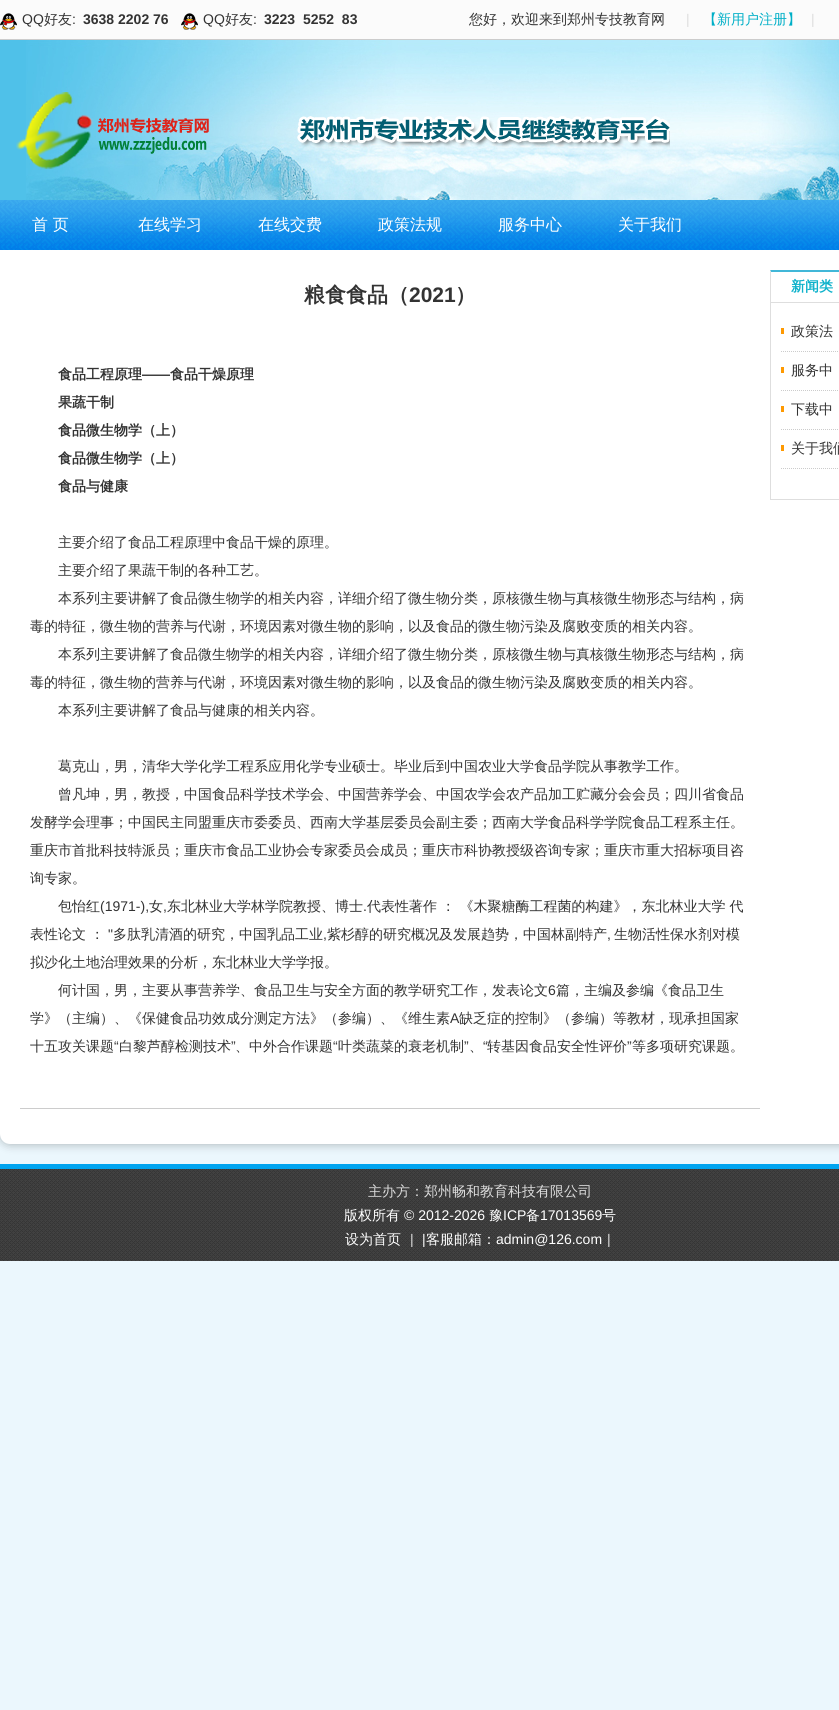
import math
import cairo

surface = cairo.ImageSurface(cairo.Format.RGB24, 839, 1710)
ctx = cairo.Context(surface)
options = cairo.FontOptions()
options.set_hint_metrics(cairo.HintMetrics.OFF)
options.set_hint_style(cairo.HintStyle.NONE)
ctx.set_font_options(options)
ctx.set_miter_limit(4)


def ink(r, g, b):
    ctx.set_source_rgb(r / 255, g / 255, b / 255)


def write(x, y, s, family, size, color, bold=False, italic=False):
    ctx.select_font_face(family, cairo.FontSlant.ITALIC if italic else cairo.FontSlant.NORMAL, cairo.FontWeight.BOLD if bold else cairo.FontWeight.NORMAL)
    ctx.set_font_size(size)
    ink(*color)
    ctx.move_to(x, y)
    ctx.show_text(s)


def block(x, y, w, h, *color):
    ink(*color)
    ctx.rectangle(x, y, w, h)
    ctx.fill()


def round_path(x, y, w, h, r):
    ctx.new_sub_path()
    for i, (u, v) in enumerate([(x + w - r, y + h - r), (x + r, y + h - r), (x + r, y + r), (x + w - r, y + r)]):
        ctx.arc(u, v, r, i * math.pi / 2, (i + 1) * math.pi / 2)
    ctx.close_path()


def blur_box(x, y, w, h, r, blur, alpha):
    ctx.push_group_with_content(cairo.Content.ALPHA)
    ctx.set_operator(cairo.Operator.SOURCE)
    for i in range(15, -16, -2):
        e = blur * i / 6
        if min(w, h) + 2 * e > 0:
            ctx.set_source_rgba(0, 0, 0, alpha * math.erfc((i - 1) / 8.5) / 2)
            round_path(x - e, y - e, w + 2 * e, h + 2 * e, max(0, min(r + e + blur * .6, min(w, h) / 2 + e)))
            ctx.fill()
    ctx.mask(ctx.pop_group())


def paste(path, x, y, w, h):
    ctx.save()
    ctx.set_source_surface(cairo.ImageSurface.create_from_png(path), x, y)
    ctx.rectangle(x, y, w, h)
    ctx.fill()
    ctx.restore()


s1 = dict(family="Liberation Sans", size=14, color=(51, 51, 51))
s2 = dict(family="WenQuanYi Zen Hei Medium", size=14, color=(51, 51, 51))
s3 = dict(family="Liberation Sans", size=14, color=(51, 51, 51), bold=True)
s4 = dict(family="Liberation Sans", size=14, color=(221, 221, 221))
s5 = dict(family="WenQuanYi Zen Hei Medium", size=14, color=(0, 175, 199))
s6 = dict(family="WenQuanYi Zen Hei Medium", size=16, color=(255, 255, 255))
s7 = dict(family="WenQuanYi Zen Hei", size=21, color=(51, 51, 51), bold=True)
s8 = dict(family="Liberation Sans", size=21, color=(51, 51, 51), bold=True)
s9 = dict(family="WenQuanYi Zen Hei", size=14, color=(51, 51, 51), bold=True)
s10 = dict(family="WenQuanYi Zen Hei", size=14, color=(14, 178, 203), bold=True)
s11 = dict(family="WenQuanYi Zen Hei Medium", size=14, color=(221, 221, 221))
s12 = dict(family="WenQuanYi Zen Hei Medium", size=14, color=(255, 255, 255))
s13 = dict(family="Liberation Sans", size=14, color=(255, 255, 255))

ink(235, 247, 253)
ctx.paint()
paste("pic1.png", 0, 40, 26, 160)
block(0, 0, 839, 39, 251, 251, 251)
block(0, 39, 839, 1, 204, 204, 204)
paste("pic2.png", 0, 13, 17, 17)
write(22, 24, "QQ", **s1)
write(44, 24, "好友", **s2)
write(72, 24, ":", **s1)
write(83, 24, "3638 2202 76", **s3)
paste("pic2.png", 181, 13, 17, 17)
write(203, 24, "QQ", **s1)
write(225, 24, "好友", **s2)
write(253, 24, ":", **s1)
write(264, 24, "3223  5252  83", **s3)
write(469, 24, "您好，欢迎来到郑州专技教育网", **s2)
write(686, 24, "|", **s4)
write(703, 24, "【新用户注册】", **s5)
write(811, 24, "|", **s4)
paste("pic3.png", 26, 40, 813, 160)
paste("pic4.png", 16, 92, 654, 77)
ink(0, 0, 0)
blur_box(0, 250, 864, 894, 10, 5, 0.3)
paste("pic5.png", 0, 200, 839, 50)
write(32, 230, "首 页", **s6)
write(138, 230, "在线学习", **s6)
write(258, 230, "在线交费", **s6)
write(378, 230, "政策法规", **s6)
write(498, 230, "服务中心", **s6)
write(618, 230, "关于我们", **s6)
ctx.new_path()
ctx.move_to(0, 250)
ctx.line_to(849, 250)
ctx.line_to(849, 1134)
ctx.curve_to(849, 1139.5, 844.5, 1144, 839, 1144)
ctx.line_to(10, 1144)
ctx.curve_to(4.5, 1144, 0, 1139.5, 0, 1134)
ctx.close_path()
ctx.fill()
write(304, 302, "粮食食品（", **s7)
write(409, 302, "2021", **s8)
write(455, 302, "）", **s7)
block(20, 1108, 740, 1, 204, 204, 204)
write(58, 379, "食品工程原理", **s9)
write(142, 379, "——", **s3)
write(170, 379, "食品干燥原理", **s9)
write(58, 407, "果蔬干制", **s9)
write(58, 435, "食品微生物学（上）", **s9)
write(58, 463, "食品微生物学（上）", **s9)
write(58, 491, "食品与健康", **s9)
write(58, 547, "主要介绍了食品工程原理中食品干燥的原理。", **s2)
write(58, 575, "主要介绍了果蔬干制的各种工艺。", **s2)
write(58, 603, "本系列主要讲解了食品微生物学的相关内容，详细介绍了微生物分类，原核微生物与真核微生物形态与结构，病", **s2)
write(30, 631, "毒的特征，微生物的营养与代谢，环境因素对微生物的影响，以及食品的微生物污染及腐败变质的相关内容。", **s2)
write(58, 659, "本系列主要讲解了食品微生物学的相关内容，详细介绍了微生物分类，原核微生物与真核微生物形态与结构，病", **s2)
write(30, 687, "毒的特征，微生物的营养与代谢，环境因素对微生物的影响，以及食品的微生物污染及腐败变质的相关内容。", **s2)
write(58, 715, "本系列主要讲解了食品与健康的相关内容。", **s2)
write(58, 771, "葛克山，男，清华大学化学工程系应用化学专业硕士。毕业后到中国农业大学食品学院从事教学工作。", **s2)
write(58, 799, "曾凡坤，男，教授，中国食品科学技术学会、中国营养学会、中国农学会农产品加工贮藏分会会员；四川省食品", **s2)
write(30, 827, "发酵学会理事；中国民主同盟重庆市委委员、西南大学基层委员会副主委；西南大学食品科学学院食品工程系主任。", **s2)
write(30, 855, "重庆市首批科技特派员；重庆市食品工业协会专家委员会成员；重庆市科协教授级咨询专家；重庆市重大招标项目咨", **s2)
write(30, 883, "询专家。", **s2)
write(58, 911, "包怡红", **s2)
write(100, 911, "(1971-),", **s1)
write(149, 911, "女", **s2)
write(163, 911, ",", **s1)
write(167, 911, "东北林业大学林学院教授、博士", **s2)
write(363, 911, ".", **s1)
write(367, 911, "代表性著作 ： 《木聚糖酶工程菌的构建》，东北林业大学 代", **s2)
write(30, 939, "表性论文 ：", **s2)
write(108, 939, "\"", **s1)
write(113, 939, "多肽乳清酒的研究，中国乳品工业", **s2)
write(327, 939, "紫杉醇的研究概况及发展趋势，中国林副特产", **s2)
write(614, 939, "生物活性保水剂对模", **s2)
write(323, 939, ",", **s1)
write(607, 939, ",", **s1)
write(30, 967, "拟沙化土地治理效果的分析，东北林业大学学报。", **s2)
write(58, 995, "何计国，男，主要从事营养学、食品卫生与安全方面的教学研究工作，发表论文", **s2)
write(548, 995, "6", **s1)
write(556, 995, "篇，主编及参编《食品卫生", **s2)
write(30, 1023, "学》（主编）、《保健食品功效成分测定方法》（参编）、《维生素", **s2)
write(450, 1023, "A", **s1)
write(459, 1023, "缺乏症的控制》（参编）等教材，现承担国家", **s2)
write(30, 1051, "十五攻关课题", **s2)
write(114, 1051, "“", **s1)
write(119, 1051, "白黎芦醇检测技术", **s2)
write(231, 1051, "”", **s1)
write(235, 1051, "、中外合作课题", **s2)
write(333, 1051, "“", **s1)
write(338, 1051, "叶类蔬菜的衰老机制", **s2)
write(464, 1051, "”", **s1)
write(483, 1051, "“", **s1)
write(487, 1051, "转基因食品安全性评价", **s2)
write(627, 1051, "”", **s1)
write(632, 1051, "等多项研究课题。", **s2)
write(469, 1051, "、", **s2)
ink(65, 183, 216)
ctx.new_path()
ctx.move_to(770, 270)
ctx.line_to(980, 270)
ctx.line_to(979, 272)
ctx.line_to(771, 272)
ctx.close_path()
ctx.fill()
block(770, 499, 69, 1, 222, 222, 222)
ctx.new_path()
ctx.move_to(770, 500)
ctx.line_to(770, 270)
ctx.line_to(771, 272)
ctx.line_to(771, 499)
ctx.close_path()
ctx.fill()
block(771, 302, 68, 1, 222, 222, 222)
write(791, 291, "新闻类", **s10)
ctx.new_path()
ctx.move_to(781, 351.5)
ctx.line_to(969, 351.5)
ctx.move_to(781, 390.5)
ctx.line_to(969, 390.5)
ink(204, 204, 204)
ctx.set_line_width(1)
ctx.set_dash([1, 1])
ctx.stroke()
write(791, 336, "政策法", **s2)
block(781, 328, 3, 6, 254, 153, 1)
write(791, 375, "服务中", **s2)
block(781, 367, 3, 6, 254, 153, 1)
ctx.new_path()
ctx.move_to(781, 429.5)
ctx.line_to(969, 429.5)
ctx.move_to(781, 468.5)
ctx.line_to(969, 468.5)
ink(204, 204, 204)
ctx.stroke()
write(791, 414, "下载中", **s2)
block(781, 406, 3, 6, 254, 153, 1)
write(791, 453, "关于我们", **s2)
block(781, 445, 3, 6, 254, 153, 1)
paste("pic6.png", 0, 1169, 839, 92)
block(0, 1164, 839, 5, 0, 164, 240)
write(368, 1196, "主办方：郑州畅和教育科技有限公司", **s11)
write(344, 1220, "版权所有", **s12)
write(404, 1220, "© 2012-2026", **s13)
write(489, 1220, "豫", **s12)
write(503, 1220, "ICP", **s13)
write(526, 1220, "备", **s12)
write(540, 1220, "17013569", **s13)
write(602, 1220, "号", **s12)
write(345, 1244, "设为首页", **s12)
write(410, 1244, "|", **s4)
write(422, 1244, "|", **s13)
write(426, 1244, "客服邮箱：", **s12)
write(496, 1244, "admin@126.com", **s13)
write(607, 1244, "|", **s4)
surface.write_to_png("screenshot.png")
